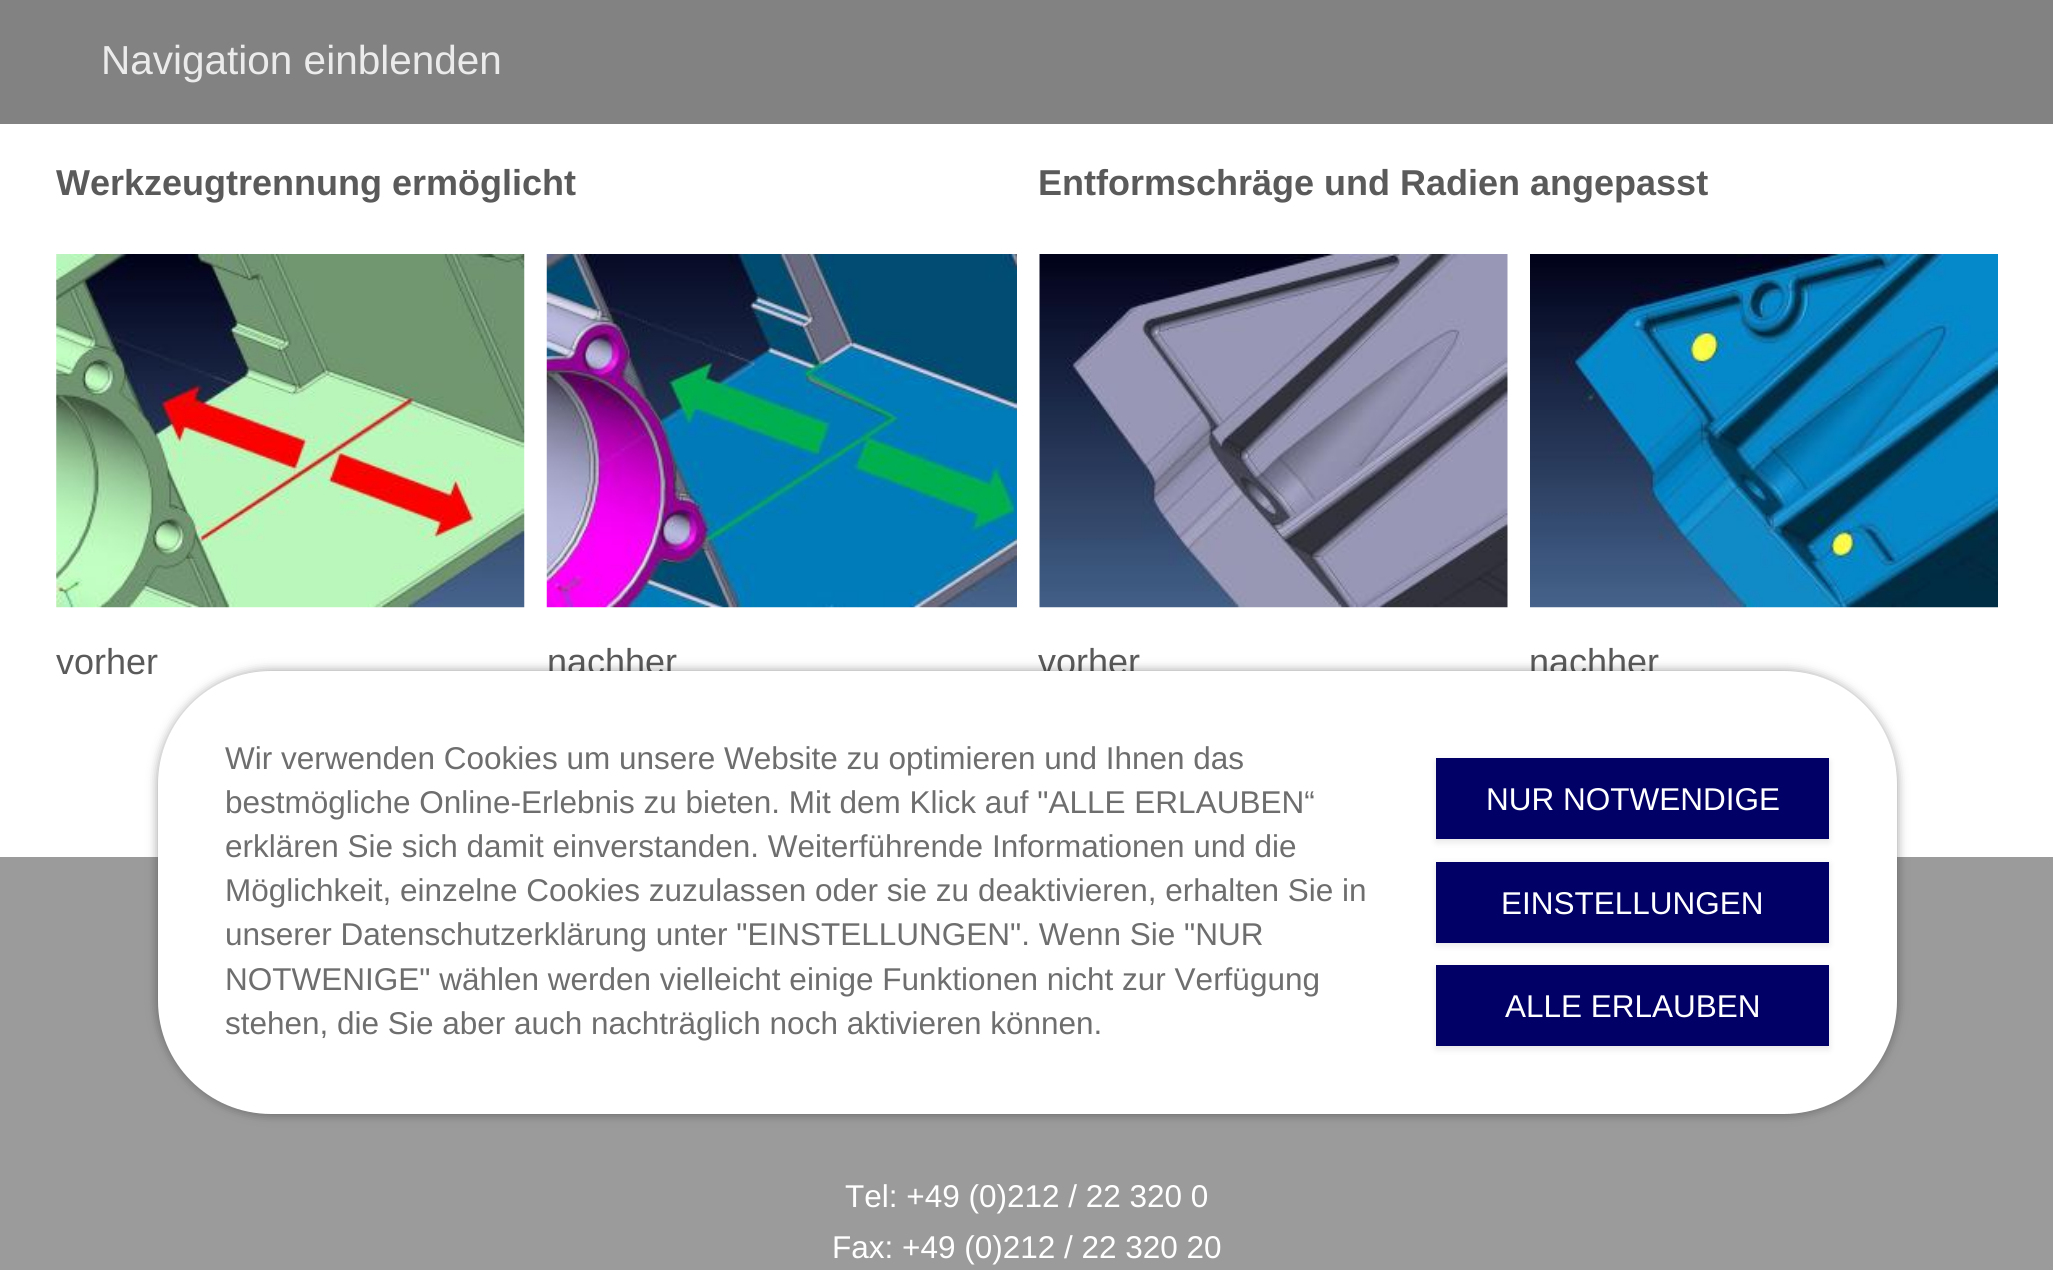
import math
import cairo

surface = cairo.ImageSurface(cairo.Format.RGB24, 2053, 1270)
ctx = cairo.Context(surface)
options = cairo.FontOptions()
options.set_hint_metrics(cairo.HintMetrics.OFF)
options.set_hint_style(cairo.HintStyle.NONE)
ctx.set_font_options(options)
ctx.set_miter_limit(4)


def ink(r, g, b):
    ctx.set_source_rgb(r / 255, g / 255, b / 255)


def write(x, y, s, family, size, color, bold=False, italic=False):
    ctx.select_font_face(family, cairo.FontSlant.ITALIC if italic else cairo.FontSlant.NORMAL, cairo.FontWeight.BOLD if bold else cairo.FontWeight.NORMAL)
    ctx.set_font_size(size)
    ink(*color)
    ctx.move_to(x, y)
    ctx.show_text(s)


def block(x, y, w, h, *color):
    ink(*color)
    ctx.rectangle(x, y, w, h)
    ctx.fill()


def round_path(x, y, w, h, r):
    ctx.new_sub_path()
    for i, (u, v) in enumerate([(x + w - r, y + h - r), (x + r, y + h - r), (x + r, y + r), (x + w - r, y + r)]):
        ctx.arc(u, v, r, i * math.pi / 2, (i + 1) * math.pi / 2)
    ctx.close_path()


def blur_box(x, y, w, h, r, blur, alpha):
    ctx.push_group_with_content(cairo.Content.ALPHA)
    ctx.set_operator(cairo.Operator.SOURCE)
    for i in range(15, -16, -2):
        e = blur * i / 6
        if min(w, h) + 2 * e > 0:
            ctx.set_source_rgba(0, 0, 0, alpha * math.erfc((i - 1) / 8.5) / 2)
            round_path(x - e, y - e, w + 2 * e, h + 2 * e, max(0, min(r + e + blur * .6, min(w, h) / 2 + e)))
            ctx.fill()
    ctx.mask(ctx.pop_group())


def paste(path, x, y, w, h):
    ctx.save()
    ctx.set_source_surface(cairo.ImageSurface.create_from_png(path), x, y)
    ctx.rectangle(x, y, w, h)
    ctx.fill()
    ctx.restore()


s1 = dict(family="Liberation Sans", size=40.5, color=(235, 235, 235))
s2 = dict(family="Liberation Sans", size=36, color=(90, 90, 90), bold=True)
s3 = dict(family="Liberation Sans", size=36, color=(90, 90, 90))
s4 = dict(family="Liberation Sans", size=31.5, color=(255, 255, 255))
s5 = dict(family="Liberation Sans", size=31.5, color=(110, 110, 110))

ink(255, 255, 255)
ctx.paint()
block(0, 0, 2053, 124, 130, 130, 130)
write(101, 74, "Navigation einblenden", **s1)
write(56, 195, "Werkzeugtrennung ermöglicht", **s2)
write(1038, 195, "Entformschräge und Radien angepasst", **s2)
paste("pic1.png", 56, 254, 469, 354)
paste("pic2.png", 546, 254, 471, 354)
paste("pic3.png", 1039, 254, 469, 354)
paste("pic4.png", 1530, 254, 468, 354)
write(56, 674, "vorher", **s3)
write(547, 674, "nachher", **s3)
write(1038, 674, "vorher", **s3)
write(1529, 674, "nachher", **s3)
block(0, 857, 2053, 413, 155, 155, 155)
write(845, 1207, "Tel: +49 (0)212 / 22 320 0", **s4)
write(832, 1258, "Fax: +49 (0)212 / 22 320 20", **s4)
ink(0, 0, 0)
blur_box(158, 671, 1739, 443, 113, 5.5, 0.4)
ink(255, 255, 255)
round_path(158, 671, 1739, 443, 113)
ctx.fill()
write(225, 769, "Wir verwenden Cookies um unsere Website zu optimieren und Ihnen das", **s5)
write(225, 813, "bestmögliche Online-Erlebnis zu bieten. Mit dem Klick auf \"ALLE ERLAUBEN“", **s5)
write(225, 857, "erklären Sie sich damit einverstanden. Weiterführende Informationen und die", **s5)
write(225, 901, "Möglichkeit, einzelne Cookies zuzulassen oder sie zu deaktivieren, erhalten Sie in", **s5)
write(225, 945, "unserer Datenschutzerklärung unter \"EINSTELLUNGEN\". Wenn Sie \"NUR", **s5)
write(225, 990, "NOTWENIGE\" wählen werden vielleicht einige Funktionen nicht zur Verfügung", **s5)
write(225, 1034, "stehen, die Sie aber auch nachträglich noch aktivieren können.", **s5)
ink(0, 0, 0)
blur_box(1436, 761, 393, 81, 0, 3.5, 0.1)
block(1436, 758, 393, 81, 1, 0, 102)
write(1486, 810, "NUR NOTWENDIGE", **s4)
ink(0, 0, 0)
blur_box(1436, 864, 393, 81, 0, 3.5, 0.1)
block(1436, 862, 393, 81, 1, 0, 102)
write(1501, 914, "EINSTELLUNGEN", **s4)
ink(0, 0, 0)
blur_box(1436, 968, 393, 81, 0, 3.5, 0.1)
block(1436, 965, 393, 81, 1, 0, 102)
write(1505, 1017, "ALLE ERLAUBEN", **s4)
surface.write_to_png("screenshot.png")
